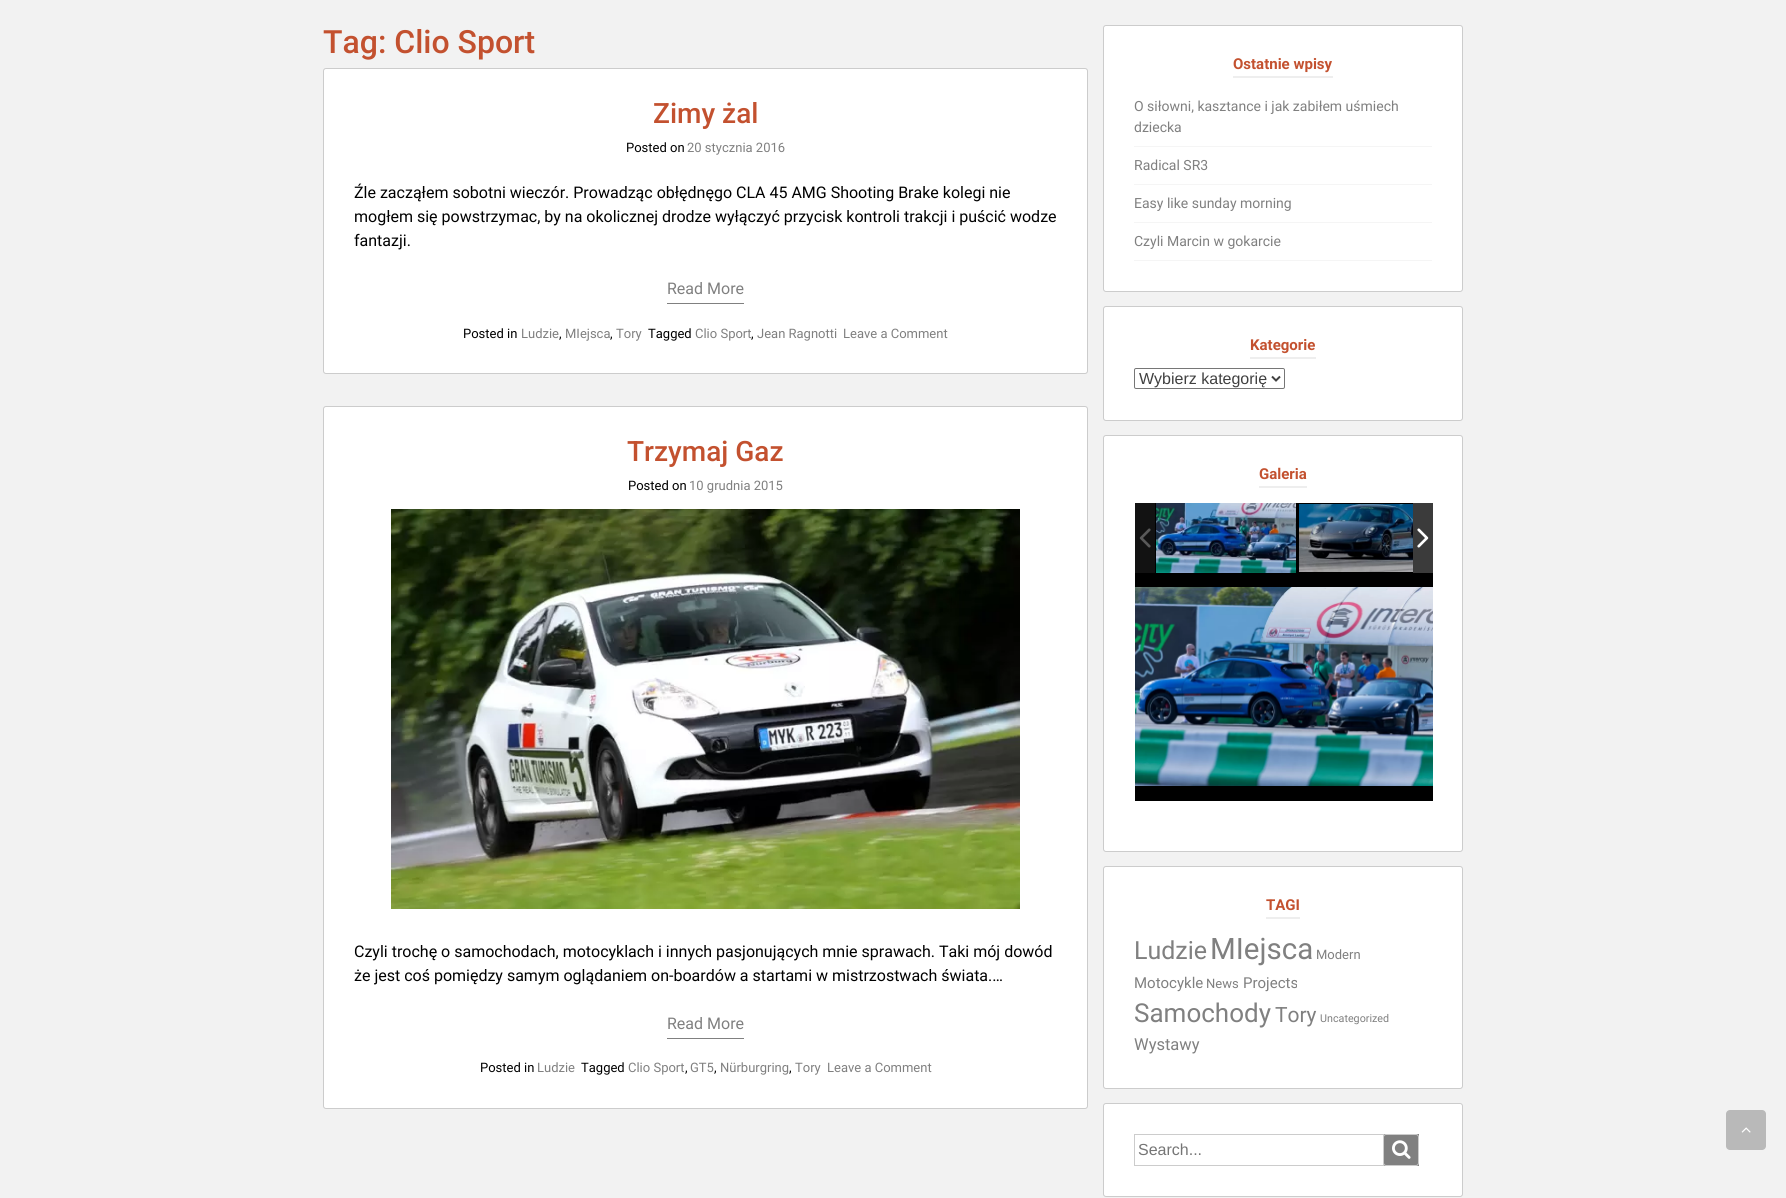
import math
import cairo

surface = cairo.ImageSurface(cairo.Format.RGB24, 1786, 1198)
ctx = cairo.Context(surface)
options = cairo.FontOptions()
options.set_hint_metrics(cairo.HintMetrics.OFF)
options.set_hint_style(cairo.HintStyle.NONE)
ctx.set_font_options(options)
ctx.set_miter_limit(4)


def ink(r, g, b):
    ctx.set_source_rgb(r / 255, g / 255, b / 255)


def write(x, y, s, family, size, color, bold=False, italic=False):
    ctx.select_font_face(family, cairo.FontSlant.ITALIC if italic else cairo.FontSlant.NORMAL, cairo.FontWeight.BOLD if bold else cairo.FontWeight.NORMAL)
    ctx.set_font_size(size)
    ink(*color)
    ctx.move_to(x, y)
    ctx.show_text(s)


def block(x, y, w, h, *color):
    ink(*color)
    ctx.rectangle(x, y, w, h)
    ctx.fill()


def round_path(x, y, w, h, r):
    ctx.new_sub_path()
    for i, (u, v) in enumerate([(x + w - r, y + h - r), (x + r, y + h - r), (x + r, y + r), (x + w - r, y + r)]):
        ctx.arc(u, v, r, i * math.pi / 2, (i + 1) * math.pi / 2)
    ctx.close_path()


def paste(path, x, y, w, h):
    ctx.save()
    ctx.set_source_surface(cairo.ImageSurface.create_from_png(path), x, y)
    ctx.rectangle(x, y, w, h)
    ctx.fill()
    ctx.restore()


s1 = dict(family="Roboto Medium", size=32, color=(195, 81, 47))
s2 = dict(family="Roboto Medium", size=28, color=(195, 81, 47))
s3 = dict(family="Roboto", size=13, color=(0, 0, 0))
s4 = dict(family="Roboto", size=13, color=(128, 128, 128))
s5 = dict(family="Roboto", size=16, color=(0, 0, 0))
s6 = dict(family="Roboto", size=16, color=(128, 128, 128))
s7 = dict(family="Roboto", size=15, color=(195, 81, 47), bold=True)
s8 = dict(family="Roboto", size=14, color=(128, 128, 128))
s9 = dict(family="Liberation Sans", size=16, color=(64, 64, 64))
s10 = dict(family="Roboto", size=25, color=(128, 128, 128))
s11 = dict(family="Roboto", size=29.5, color=(128, 128, 128))
s12 = dict(family="Roboto", size=15, color=(128, 128, 128))
s13 = dict(family="Roboto", size=26, color=(128, 128, 128))
s14 = dict(family="Roboto", size=21, color=(128, 128, 128))
s15 = dict(family="Roboto", size=10.75, color=(128, 128, 128))
s16 = dict(family="Roboto", size=16.5, color=(128, 128, 128))
s17 = dict(family="Liberation Sans", size=16, color=(117, 117, 117))

ink(242, 242, 242)
ctx.paint()
write(323, 53, "Tag: Clio Sport", **s1)
ink(255, 255, 255)
round_path(323.5, 68.5, 764, 305, 2.5)
ctx.fill_preserve()
ink(204, 204, 204)
ctx.set_line_width(1)
ctx.stroke()
write(653, 123, "Zimy żal", **s2)
write(626, 152, "Posted on", **s3)
write(687, 152, "20 stycznia 2016", **s4)
write(354, 198, "Źle zacząłem sobotni wieczór. Prowadząc obłędnęgo CLA 45 AMG Shooting Brake kolegi nie", **s5)
write(354, 222, "mogłem się powstrzymac, by na okolicznej drodze wyłączyć przycisk kontroli trakcji i puścić wodze", **s5)
write(354, 246, "fantazji.", **s5)
block(667, 303, 77, 1, 128, 128, 128)
write(667, 294, "Read More", **s6)
write(463, 338, "Posted in", **s3)
write(521, 338, "Ludzie", **s4)
write(559, 338, ",", **s3)
write(565, 338, "MIejsca", **s4)
write(610, 338, ",", **s3)
write(616, 338, "Tory", **s4)
write(648, 338, "Tagged", **s3)
write(695, 338, "Clio Sport", **s4)
write(751, 338, ",", **s3)
write(757, 338, "Jean Ragnotti", **s4)
write(843, 338, "Leave a Comment", **s4)
ink(255, 255, 255)
round_path(323.5, 406.5, 764, 702, 2.5)
ctx.fill_preserve()
ink(204, 204, 204)
ctx.stroke()
write(627, 461, "Trzymaj Gaz", **s2)
write(628, 490, "Posted on", **s3)
write(689, 490, "10 grudnia 2015", **s4)
paste("pic1.png", 391, 509, 629, 400)
write(354, 957, "Czyli trochę o samochodach, motocyklach i innych pasjonujących mnie sprawach. Taki mój dowód", **s5)
write(354, 981, "że jest coś pomiędzy samym oglądaniem on-boardów a startami w mistrzostwach świata.…", **s5)
block(667, 1038, 77, 1, 128, 128, 128)
write(667, 1029, "Read More", **s6)
write(480, 1072, "Posted in", **s3)
write(537, 1072, "Ludzie", **s4)
write(581, 1072, "Tagged", **s3)
write(628, 1072, "Clio Sport", **s4)
write(685, 1072, ",", **s3)
write(690, 1072, "GT5", **s4)
write(714, 1072, ",", **s3)
write(720, 1072, "Nürburgring", **s4)
write(789, 1072, ",", **s3)
write(795, 1072, "Tory", **s4)
write(827, 1072, "Leave a Comment", **s4)
ink(255, 255, 255)
round_path(1103.5, 25.5, 359, 266, 2.5)
ctx.fill_preserve()
ink(204, 204, 204)
ctx.stroke()
write(1233, 69, "Ostatnie wpisy", **s7)
block(1233, 76, 100, 2, 238, 238, 238)
block(1134, 146, 298, 1, 245, 245, 245)
write(1134, 111, "O siłowni, kasztance i jak zabiłem uśmiech", **s8)
write(1134, 132, "dziecka", **s8)
block(1134, 184, 298, 1, 245, 245, 245)
write(1134, 170, "Radical SR3", **s8)
block(1134, 222, 298, 1, 245, 245, 245)
write(1134, 208, "Easy like sunday morning", **s8)
block(1134, 260, 298, 1, 245, 245, 245)
write(1134, 246, "Czyli Marcin w gokarcie", **s8)
ink(255, 255, 255)
round_path(1103.5, 306.5, 359, 114, 2.5)
ctx.fill_preserve()
ink(204, 204, 204)
ctx.stroke()
write(1250, 350, "Kategorie", **s7)
block(1250, 357, 66, 2, 238, 238, 238)
round_path(1134.5, 368.5, 150, 20, 1.5)
ink(118, 118, 118)
ctx.stroke()
ctx.new_path()
ctx.move_to(1272, 376.5)
ctx.line_to(1276, 380.5)
ctx.line_to(1280, 376.5)
ink(64, 64, 64)
ctx.set_line_width(2)
ctx.stroke()
write(1139, 384, "Wybierz kategorię", **s9)
ink(255, 255, 255)
round_path(1103.5, 435.5, 359, 416, 2.5)
ctx.fill_preserve()
ink(204, 204, 204)
ctx.set_line_width(1)
ctx.stroke()
write(1259, 479, "Galeria", **s7)
block(1259, 486, 48, 2, 238, 238, 238)
block(1135, 503, 298, 298, 0, 0, 0)
block(1135, 503, 20, 70, 18, 18, 18)
paste("pic2.png", 1139, 528, 12, 20)
paste("pic3.png", 1156, 503, 140, 70)
paste("pic4.png", 1299, 504, 114, 68)
block(1413, 503, 20, 70, 59, 59, 59)
paste("pic5.png", 1417, 528, 12, 20)
paste("pic6.png", 1135, 587, 298, 199)
ink(255, 255, 255)
round_path(1103.5, 866.5, 359, 222, 2.5)
ctx.fill_preserve()
ink(204, 204, 204)
ctx.stroke()
write(1266, 910, "TAGI", **s7)
block(1266, 917, 34, 2, 238, 238, 238)
write(1134, 959, "Ludzie", **s10)
write(1210, 959, "MIejsca", **s11)
write(1316, 959, "Modern", **s4)
write(1134, 988, "Motocykle", **s12)
write(1206, 988, "News", **s4)
write(1243, 988, "Projects", **s12)
write(1134, 1022, "Samochody", **s13)
write(1275, 1022, "Tory", **s14)
write(1320, 1022, "Uncategorized", **s15)
write(1134, 1050, "Wystawy", **s16)
ink(255, 255, 255)
round_path(1103.5, 1103.5, 359, 93, 2.5)
ctx.fill_preserve()
ink(204, 204, 204)
ctx.stroke()
ctx.rectangle(1134.5, 1134.5, 249, 31)
ctx.stroke()
write(1138, 1155, "Search...", **s17)
block(1384, 1134, 35, 32, 128, 128, 128)
paste("pic7.png", 1392, 1140, 19, 19)
round_path(1383.5, 1134.5, 35, 31, 2.5)
ink(204, 204, 204)
ctx.stroke()
ink(185, 185, 185)
round_path(1726, 1110, 40, 40, 4)
ctx.fill()
paste("pic8.png", 1741, 1127, 10, 6)
surface.write_to_png("screenshot.png")
